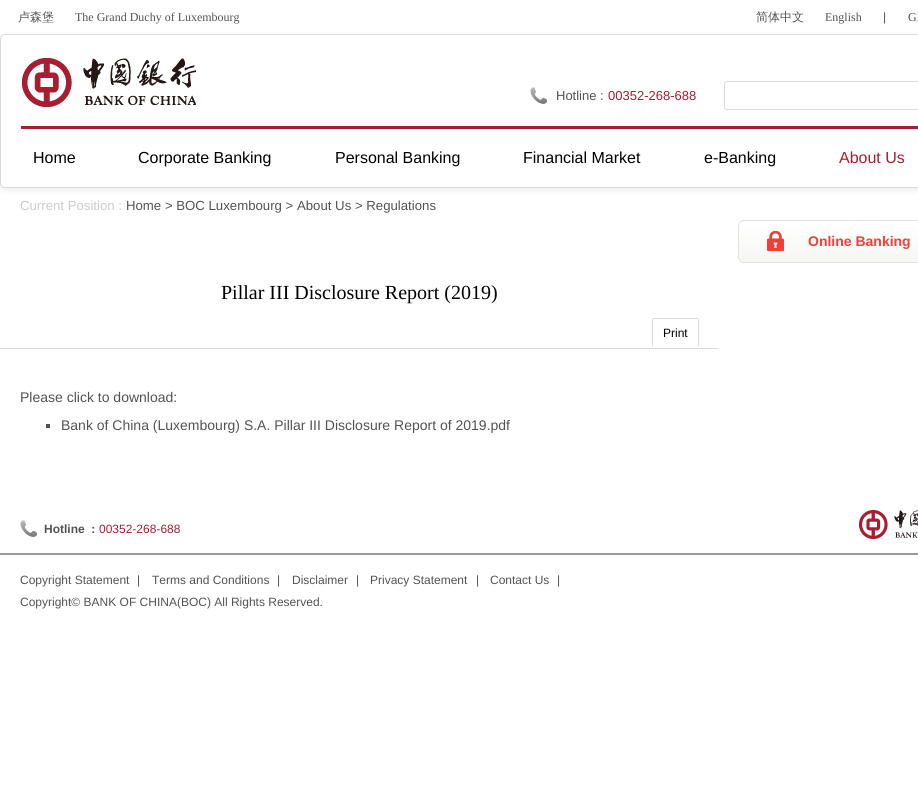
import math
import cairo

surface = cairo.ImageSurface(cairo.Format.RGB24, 918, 811)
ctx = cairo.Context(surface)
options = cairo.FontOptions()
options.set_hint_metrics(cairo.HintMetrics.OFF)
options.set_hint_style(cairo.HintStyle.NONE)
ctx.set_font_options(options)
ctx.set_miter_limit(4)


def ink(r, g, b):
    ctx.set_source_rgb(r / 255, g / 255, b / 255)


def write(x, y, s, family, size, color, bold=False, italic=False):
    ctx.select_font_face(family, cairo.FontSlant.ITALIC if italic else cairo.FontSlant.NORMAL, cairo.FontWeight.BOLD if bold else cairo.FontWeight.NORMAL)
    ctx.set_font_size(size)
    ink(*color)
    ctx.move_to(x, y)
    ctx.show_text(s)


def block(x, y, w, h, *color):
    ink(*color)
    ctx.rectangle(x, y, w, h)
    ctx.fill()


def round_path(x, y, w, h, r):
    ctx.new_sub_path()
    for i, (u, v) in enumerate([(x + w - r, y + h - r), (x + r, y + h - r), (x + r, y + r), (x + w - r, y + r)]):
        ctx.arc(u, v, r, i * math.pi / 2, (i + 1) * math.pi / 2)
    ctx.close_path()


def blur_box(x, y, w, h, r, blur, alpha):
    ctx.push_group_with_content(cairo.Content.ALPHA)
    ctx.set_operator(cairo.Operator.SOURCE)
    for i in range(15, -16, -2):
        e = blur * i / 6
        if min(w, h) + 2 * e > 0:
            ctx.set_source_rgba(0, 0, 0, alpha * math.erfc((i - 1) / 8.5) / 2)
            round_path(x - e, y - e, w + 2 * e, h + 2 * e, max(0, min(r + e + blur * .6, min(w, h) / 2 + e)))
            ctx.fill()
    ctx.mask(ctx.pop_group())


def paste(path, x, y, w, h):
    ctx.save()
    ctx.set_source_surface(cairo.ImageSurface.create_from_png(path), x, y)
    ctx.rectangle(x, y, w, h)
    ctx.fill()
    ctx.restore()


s1 = dict(family="WenQuanYi Zen Hei Medium", size=12, color=(83, 83, 83))
s2 = dict(family="Liberation Serif", size=12, color=(83, 83, 83))
s3 = dict(family="Liberation Sans", size=12, color=(83, 83, 83))
s4 = dict(family="Liberation Sans", size=13, color=(83, 83, 83))
s5 = dict(family="Liberation Sans", size=13, color=(167, 30, 50))
s6 = dict(family="Liberation Sans", size=16, color=(0, 0, 0))
s7 = dict(family="Liberation Sans", size=16, color=(167, 30, 50))
s8 = dict(family="Liberation Sans", size=13.2, color=(204, 204, 204))
s9 = dict(family="Liberation Sans", size=13.2, color=(83, 83, 83))
s10 = dict(family="Liberation Sans", size=14, color=(238, 64, 54), bold=True)
s11 = dict(family="Liberation Serif", size=20, color=(0, 0, 0))
s12 = dict(family="Liberation Sans", size=12, color=(0, 0, 0))
s13 = dict(family="Liberation Sans", size=14, color=(83, 83, 83))
s14 = dict(family="Liberation Sans", size=12, color=(83, 83, 83), bold=True)
s15 = dict(family="Liberation Sans", size=12, color=(167, 30, 50))

ink(255, 255, 255)
ctx.paint()
write(18, 21, "卢森堡", **s1)
write(75, 21, "The Grand Duchy of Luxembourg", **s2)
write(756, 21, "简体中文", **s1)
write(825, 21, "English", **s2)
write(883, 21, "|", **s3)
write(908, 21, "Gl", **s2)
ink(238, 238, 238)
blur_box(0, 36, 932, 154, 5, 3, 1)
ink(255, 255, 255)
round_path(0.5, 34.5, 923, 153, 4.5)
ctx.fill_preserve()
ink(218, 218, 218)
ctx.set_line_width(1)
ctx.stroke()
block(21, 126, 897, 3, 167, 30, 50)
paste("pic1.png", 22, 58, 174, 49)
paste("pic2.png", 530, 87, 17, 17)
write(556, 100, "Hotline :", **s4)
write(608, 100, "00352-268-688", **s5)
round_path(724.5, 81.5, 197, 28, 2.5)
ink(218, 218, 218)
ctx.stroke()
write(33, 163, "Home", **s6)
write(138, 163, "Corporate Banking", **s6)
write(335, 163, "Personal Banking", **s6)
write(523, 163, "Financial Market", **s6)
write(704, 163, "e-Banking", **s6)
write(839, 163, "About Us", **s7)
write(20, 210, "Current Position :", **s8)
write(126, 210, "Home > BOC Luxembourg > About Us > Regulations", **s9)
paste("pic3.png", 738, 220, 180, 43)
write(808, 246, "Online Banking", **s10)
write(221, 299, "Pillar III Disclosure Report (2019)", **s11)
block(0, 348, 718, 1, 218, 218, 218)
block(653, 318, 45, 1, 218, 218, 218)
block(698, 319, 1, 27, 218, 218, 218)
block(652, 319, 1, 27, 218, 218, 218)
write(663, 337, "Print", **s12)
write(20, 402, "Please click to download:", **s13)
block(46, 424, 4, 4, 83, 83, 83)
write(61, 430, "Bank of China (Luxembourg) S.A. Pillar III Disclosure Report of 2019.pdf", **s13)
paste("pic2.png", 20, 520, 17, 17)
write(44, 533, "Hotline  :", **s14)
write(99, 533, "00352-268-688", **s15)
paste("pic4.png", 859, 510, 59, 29)
block(0, 553, 918, 2, 153, 153, 153)
write(20, 584, "Copyright Statement", **s3)
write(137, 584, "|", **s3)
write(152, 584, "Terms and Conditions", **s3)
write(277, 584, "|", **s3)
write(292, 584, "Disclaimer", **s3)
write(356, 584, "|", **s3)
write(370, 584, "Privacy Statement", **s3)
write(476, 584, "|", **s3)
write(490, 584, "Contact Us", **s3)
write(557, 584, "|", **s3)
write(20, 606, "Copyright© BANK OF CHINA(BOC) All Rights Reserved.", **s3)
surface.write_to_png("screenshot.png")
